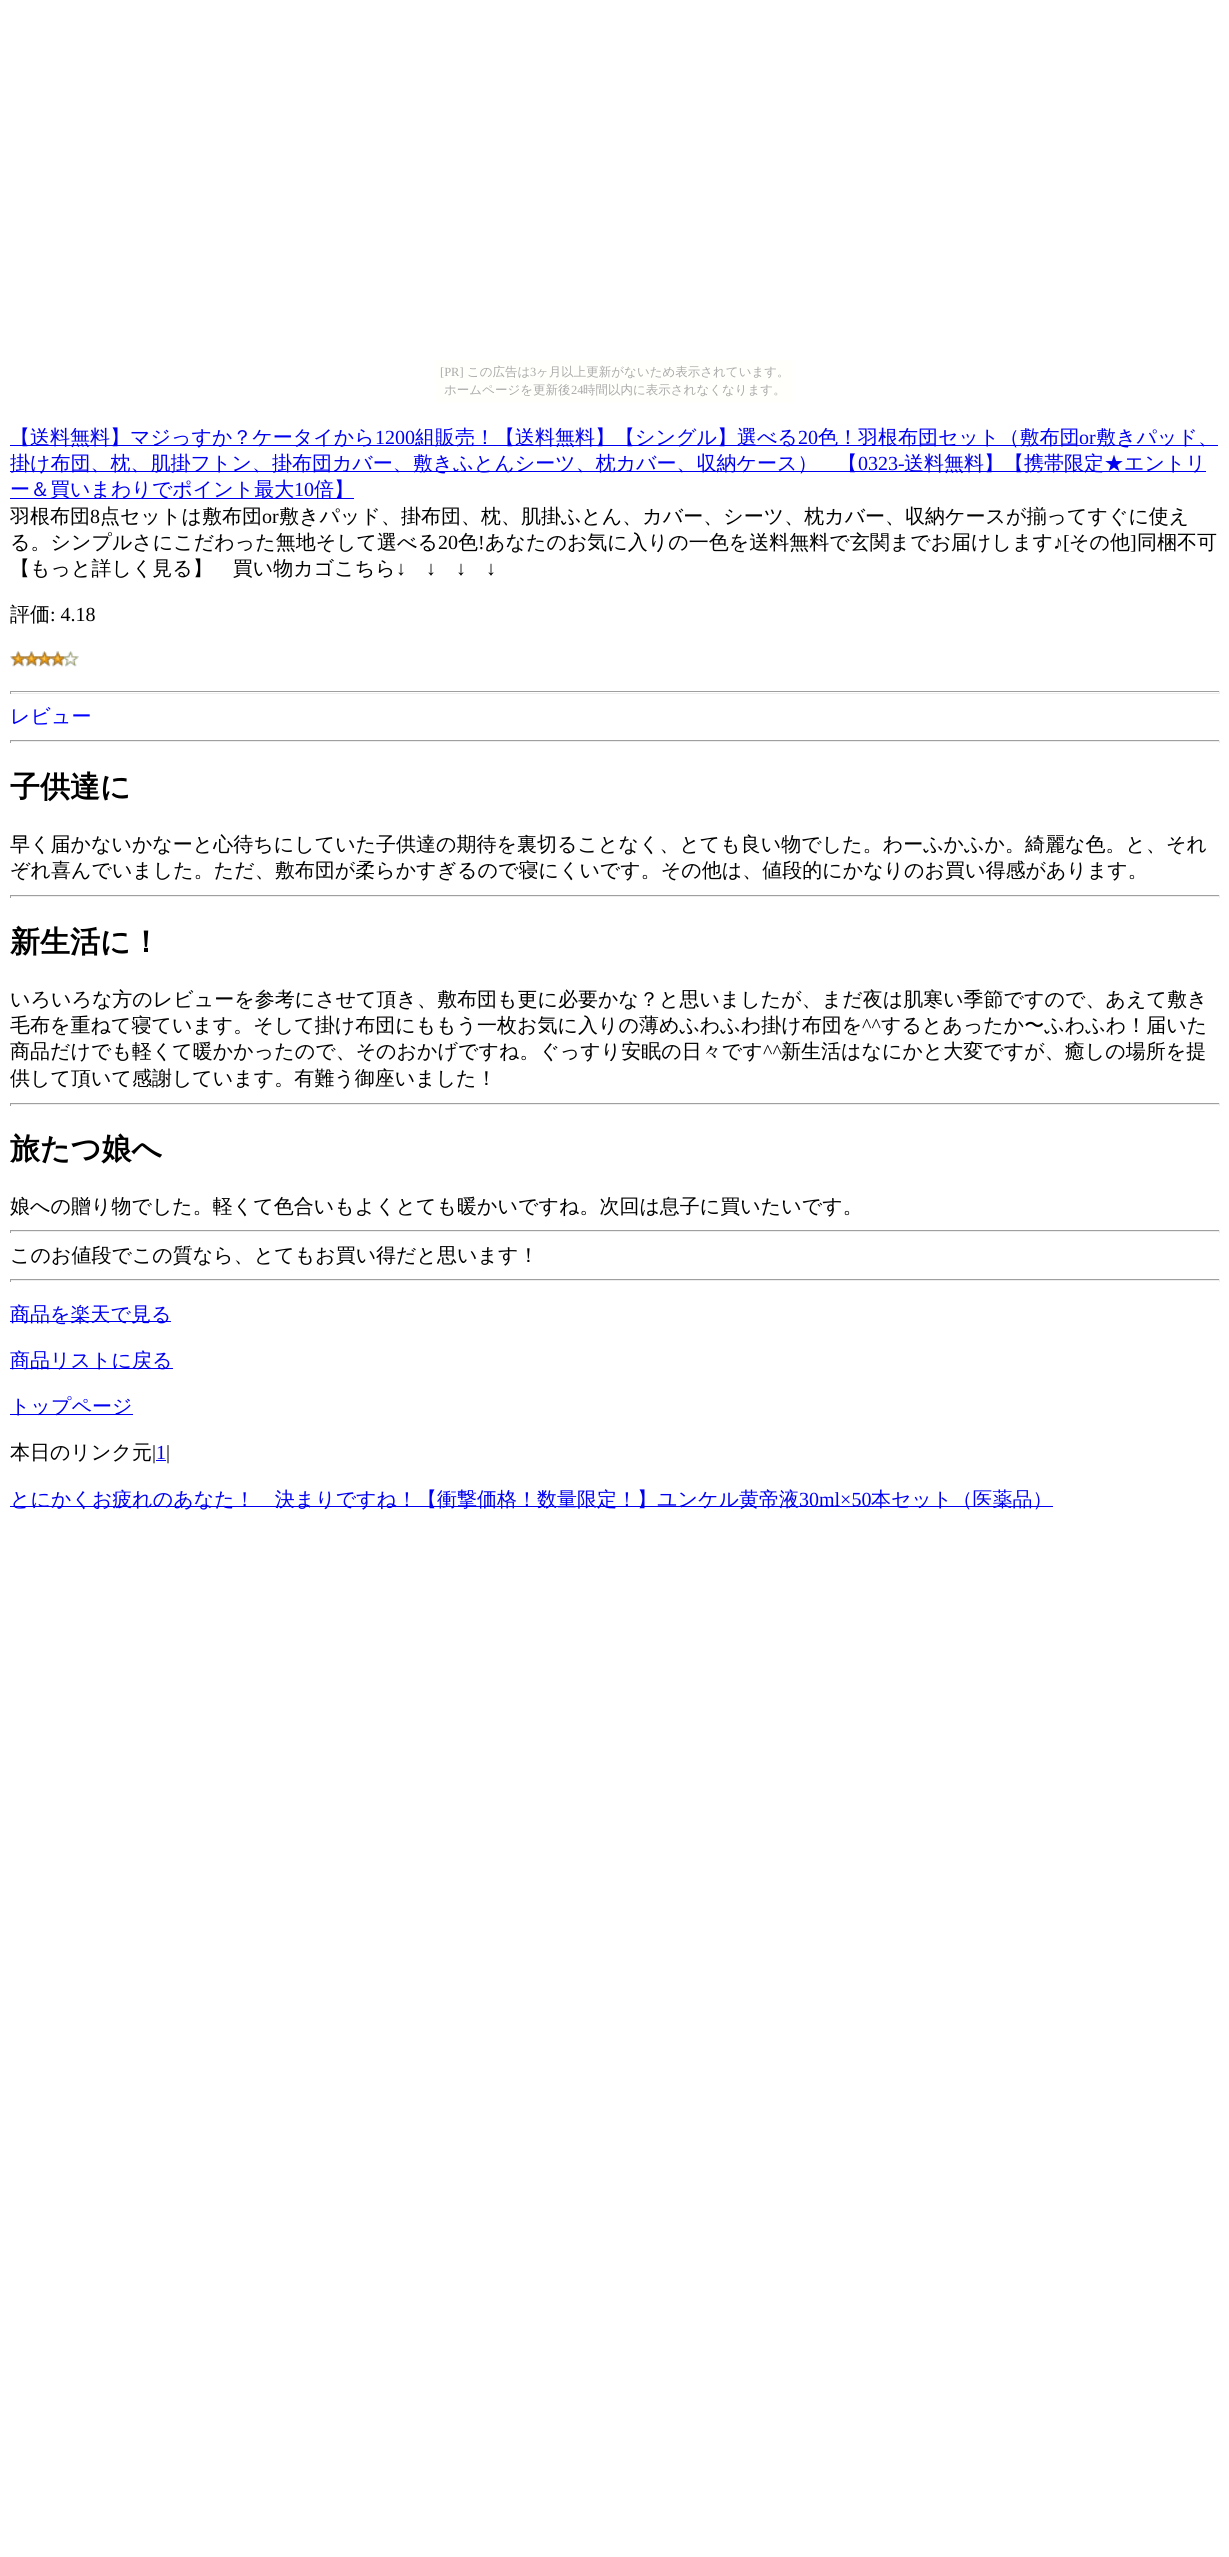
import math
import cairo

surface = cairo.ImageSurface(cairo.Format.RGB24, 1229, 2557)
ctx = cairo.Context(surface)
options = cairo.FontOptions()
options.set_hint_metrics(cairo.HintMetrics.OFF)
options.set_hint_style(cairo.HintStyle.NONE)
ctx.set_font_options(options)
ctx.set_miter_limit(4)


def ink(r, g, b):
    ctx.set_source_rgb(r / 255, g / 255, b / 255)


def write(x, y, s, family, size, color, bold=False, italic=False):
    ctx.select_font_face(family, cairo.FontSlant.ITALIC if italic else cairo.FontSlant.NORMAL, cairo.FontWeight.BOLD if bold else cairo.FontWeight.NORMAL)
    ctx.set_font_size(size)
    ink(*color)
    ctx.move_to(x, y)
    ctx.show_text(s)


def block(x, y, w, h, *color):
    ink(*color)
    ctx.rectangle(x, y, w, h)
    ctx.fill()


def paste(path, x, y, w, h):
    ctx.save()
    ctx.set_source_surface(cairo.ImageSurface.create_from_png(path), x, y)
    ctx.rectangle(x, y, w, h)
    ctx.fill()
    ctx.restore()


s1 = dict(family="Liberation Serif", size=12.5, color=(170, 170, 170))
s2 = dict(family="WenQuanYi Zen Hei Medium", size=12.5, color=(170, 170, 170))
s3 = dict(family="WenQuanYi Zen Hei Medium", size=20, color=(0, 0, 238))
s4 = dict(family="Liberation Serif", size=20, color=(0, 0, 238))
s5 = dict(family="WenQuanYi Zen Hei Medium", size=20, color=(0, 0, 0))
s6 = dict(family="Liberation Serif", size=20, color=(0, 0, 0))
s7 = dict(family="WenQuanYi Zen Hei Medium", size=20, color=(0, 0, 255))
s8 = dict(family="WenQuanYi Zen Hei", size=30, color=(0, 0, 0), bold=True)

ink(255, 255, 255)
ctx.paint()
block(436, 360, 358, 43, 255, 255, 252)
write(440, 376, "[PR]", **s1)
write(467, 376, "この広告は", **s2)
write(530, 376, "3", **s1)
write(536, 376, "ヶ月以上更新がないため表示されています。", **s2)
write(444, 394, "ホームページを更新後", **s2)
write(571, 394, "24", **s1)
write(583, 394, "時間以内に表示されなくなります。", **s2)
block(10, 445, 1208, 1, 0, 0, 238)
write(10, 444, "【送料無料】マジっすか？ケータイから", **s3)
write(375, 444, "1200", **s4)
write(415, 444, "組販売！【送料無料】【シングル】選べる", **s3)
write(798, 444, "20", **s4)
write(818, 444, "色！羽根布団セット（敷布団", **s3)
write(1079, 444, "or", **s4)
write(1096, 444, "敷きパッド、", **s3)
block(10, 471, 1196, 1, 0, 0, 238)
write(10, 470, "掛け布団、枕、肌掛フトン、掛布団カバー、敷きふとんシーツ、枕カバー、収納ケース）　【", **s3)
write(858, 470, "0323-", **s4)
write(904, 470, "送料無料】【携帯限定★エントリ", **s3)
block(10, 498, 344, 1, 0, 0, 238)
write(10, 496, "ー＆買いまわりでポイント最大", **s3)
write(294, 496, "10", **s4)
write(314, 496, "倍】", **s3)
write(10, 523, "羽根布団", **s5)
write(90, 523, "8", **s6)
write(100, 523, "点セットは敷布団", **s5)
write(262, 523, "or", **s6)
write(279, 523, "敷きパッド、掛布団、枕、肌掛ふとん、カバー、シーツ、枕カバー、収納ケースが揃ってすぐに使え", **s5)
write(10, 549, "る。シンプルさにこだわった無地そして選べる", **s5)
write(438, 549, "20", **s6)
write(458, 549, "色", **s5)
write(478, 549, "!", **s6)
write(485, 549, "あなたのお気に入りの一色を送料無料で玄関までお届けします", **s5)
write(1053, 549, "♪[", **s6)
write(1069, 549, "その他", **s5)
write(1130, 549, "]", **s6)
write(1137, 549, "同梱不可", **s5)
write(10, 575, "【もっと詳しく見る】　買い物カゴこちら", **s5)
write(396, 575, "↓", **s6)
write(426, 575, "↓", **s6)
write(456, 575, "↓", **s6)
write(486, 575, "↓", **s6)
write(10, 621, "評価", **s5)
write(50, 621, ": 4.18", **s6)
paste("pic1.png", 10, 651, 69, 16)
block(10, 691, 1210, 1, 159, 159, 159)
block(1219, 691, 1, 3, 238, 238, 238)
block(10, 693, 1210, 1, 238, 238, 238)
block(10, 691, 1, 3, 159, 159, 159)
write(10, 723, "レビュー", **s7)
block(10, 740, 1210, 1, 159, 159, 159)
block(1219, 740, 1, 3, 238, 238, 238)
block(10, 741, 1210, 1, 238, 238, 238)
block(10, 740, 1, 3, 159, 159, 159)
write(10, 797, "子供達に", **s8)
write(10, 851, "早く届かないかなーと心待ちにしていた子供達の期待を裏切ることなく、とても良い物でした。わーふかふか。綺麗な色。と、それ", **s5)
write(10, 877, "ぞれ喜んでいました。ただ、敷布団が柔らかすぎるので寝にくいです。その他は、値段的にかなりのお買い得感があります。", **s5)
block(10, 895, 1210, 1, 159, 159, 159)
block(1219, 895, 1, 3, 238, 238, 238)
block(10, 896, 1210, 1, 238, 238, 238)
block(10, 895, 1, 3, 159, 159, 159)
write(10, 952, "新生活に！", **s8)
write(10, 1006, "いろいろな方のレビューを参考にさせて頂き、敷布団も更に必要かな？と思いましたが、まだ夜は肌寒い季節ですので、あえて敷き", **s5)
write(10, 1032, "毛布を重ねて寝ています。そして掛け布団にももう一枚お気に入りの薄めふわふわ掛け布団を", **s5)
write(862, 1032, "^^", **s6)
write(881, 1032, "するとあったか〜ふわふわ！届いた", **s5)
write(10, 1058, "商品だけでも軽くて暖かかったので、そのおかげですね。ぐっすり安眠の日々です", **s5)
write(763, 1058, "^^", **s6)
write(781, 1058, "新生活はなにかと大変ですが、癒しの場所を提", **s5)
write(10, 1085, "供して頂いて感謝しています。有難う御座いました！", **s5)
block(10, 1103, 1210, 1, 159, 159, 159)
block(1219, 1103, 1, 3, 238, 238, 238)
block(10, 1104, 1210, 1, 238, 238, 238)
block(10, 1103, 1, 3, 159, 159, 159)
write(10, 1159, "旅たつ娘へ", **s8)
write(10, 1213, "娘への贈り物でした。軽くて色合いもよくとても暖かいですね。次回は息子に買いたいです。", **s5)
block(10, 1230, 1210, 1, 159, 159, 159)
block(1219, 1230, 1, 3, 238, 238, 238)
block(10, 1231, 1210, 1, 238, 238, 238)
block(10, 1230, 1, 3, 159, 159, 159)
write(10, 1262, "このお値段でこの質なら、とてもお買い得だと思います！", **s5)
block(10, 1279, 1210, 1, 159, 159, 159)
block(1219, 1279, 1, 3, 238, 238, 238)
block(10, 1280, 1210, 1, 238, 238, 238)
block(10, 1279, 1, 3, 159, 159, 159)
block(10, 1321, 161, 1, 0, 0, 238)
write(10, 1321, "商品を楽天で見る", **s3)
block(10, 1368, 163, 1, 0, 0, 238)
write(10, 1367, "商品リストに戻る", **s3)
block(10, 1414, 123, 1, 0, 0, 238)
write(10, 1413, "トップページ", **s3)
write(10, 1459, "本日のリンク元", **s5)
write(152, 1459, "|", **s6)
write(156, 1459, "1", **s4)
block(156, 1460, 10, 1, 0, 0, 238)
write(166, 1459, "|", **s6)
block(10, 1506, 1043, 1, 0, 0, 238)
write(10, 1506, "とにかくお疲れのあなた！　決まりですね！【衝撃価格！数量限定！】ユンケル黄帝液", **s3)
write(799, 1506, "30ml×50", **s4)
write(871, 1506, "本セット（医薬品）", **s3)
surface.write_to_png("screenshot.png")
